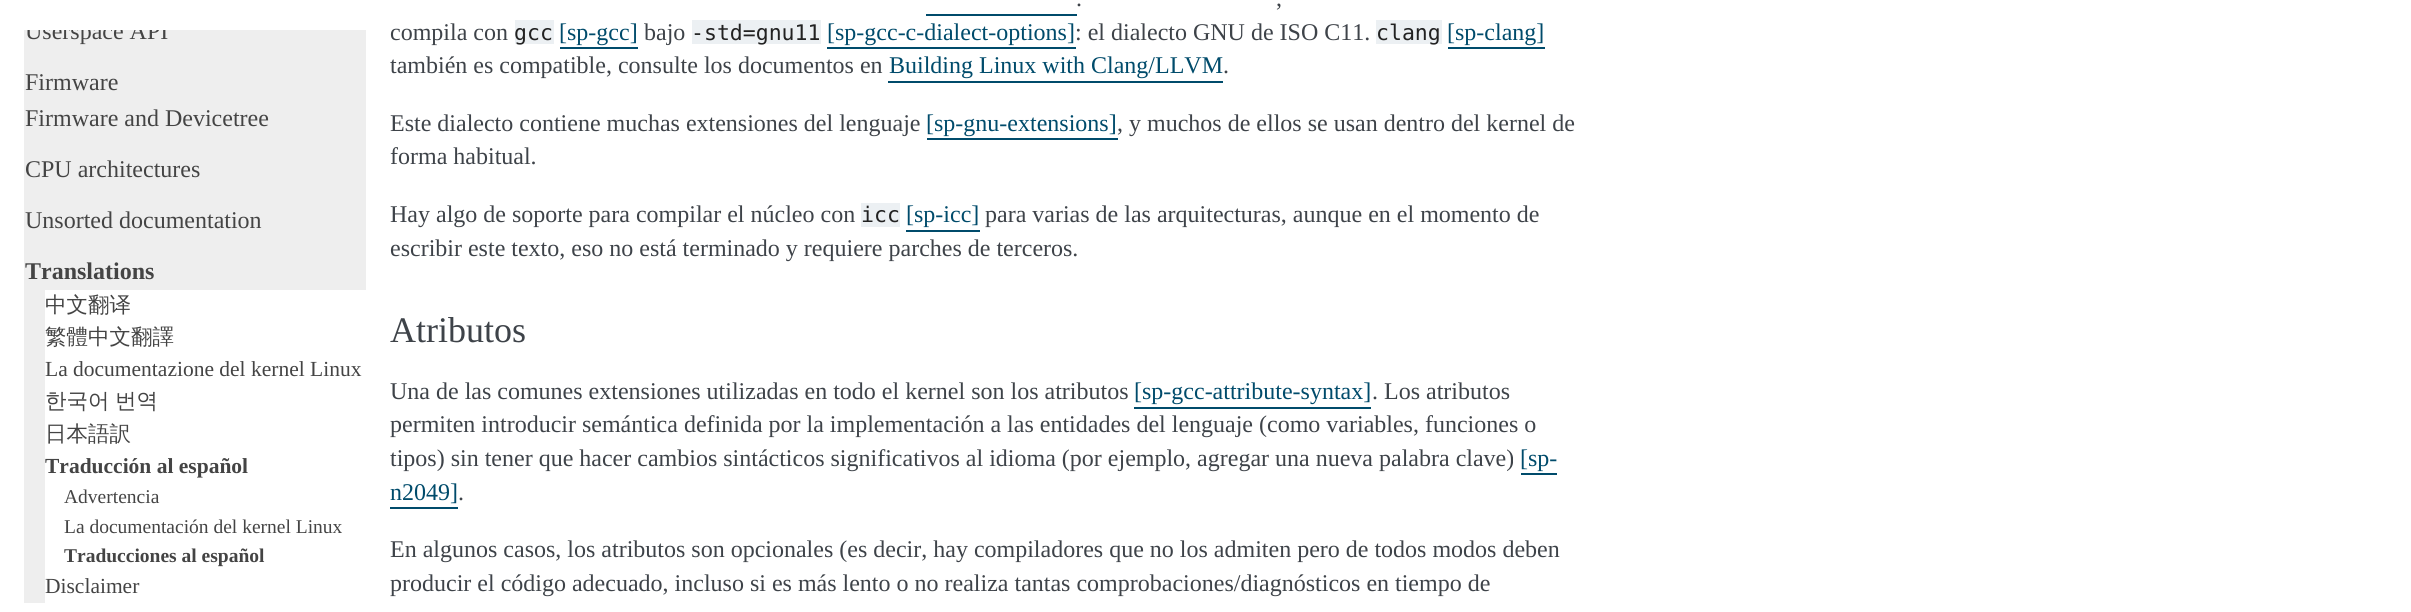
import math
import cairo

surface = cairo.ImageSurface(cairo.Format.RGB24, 2411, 612)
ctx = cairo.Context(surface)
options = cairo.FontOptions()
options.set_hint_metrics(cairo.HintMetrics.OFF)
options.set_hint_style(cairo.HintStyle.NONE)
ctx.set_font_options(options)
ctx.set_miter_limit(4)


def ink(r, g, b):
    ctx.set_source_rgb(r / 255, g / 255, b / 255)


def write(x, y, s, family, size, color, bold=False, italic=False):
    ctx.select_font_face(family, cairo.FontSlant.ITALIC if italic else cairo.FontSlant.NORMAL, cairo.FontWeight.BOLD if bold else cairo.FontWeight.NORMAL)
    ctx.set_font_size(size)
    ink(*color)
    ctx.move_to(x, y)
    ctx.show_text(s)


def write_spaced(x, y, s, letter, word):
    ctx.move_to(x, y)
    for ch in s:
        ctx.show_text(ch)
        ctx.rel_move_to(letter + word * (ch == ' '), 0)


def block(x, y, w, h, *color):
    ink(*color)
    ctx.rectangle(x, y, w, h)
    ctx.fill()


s1 = dict(family="Liberation Serif", size=24, color=(68, 68, 68))
s2 = dict(family="Liberation Serif", size=24, color=(68, 68, 68), bold=True)
s3 = dict(family="WenQuanYi Zen Hei Medium", size=21.5, color=(68, 68, 68))
s4 = dict(family="Liberation Serif", size=21.5, color=(68, 68, 68))
s5 = dict(family="Liberation Serif", size=21.5, color=(68, 68, 68), bold=True)
s6 = dict(family="Liberation Serif", size=19.5, color=(68, 68, 68))
s7 = dict(family="Liberation Serif", size=19.5, color=(68, 68, 68), bold=True)
s8 = dict(family="Liberation Serif", size=24, color=(62, 67, 73))
s9 = dict(family="DejaVu Sans Mono", size=21.5, color=(34, 34, 34))
s10 = dict(family="Liberation Serif", size=24, color=(0, 75, 107))
s11 = dict(family="Liberation Serif", size=36, color=(62, 67, 73))

ink(255, 255, 255)
ctx.paint()
block(24, 30, 342, 573, 238, 238, 238)
ctx.save()
ctx.rectangle(15, 30, 360, 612)
ctx.clip()
write(25, 39, "Userspace API", **s1)
ctx.restore()
write(25, 90, "Firmware", **s1)
write(25, 126, "Firmware and Devicetree", **s1)
write(25, 177, "CPU architectures", **s1)
write(25, 228, "Unsorted documentation", **s1)
write(25, 279, "Translations", **s2)
block(45, 290, 321, 313, 255, 255, 255)
write(45, 312, "中文翻译", **s3)
write(45, 344, "繁體中文翻譯", **s3)
write(45, 376, "La documentazione del kernel Linux", **s4)
ctx.select_font_face("WenQuanYi Zen Hei Medium")
write_spaced(45, 408, "한국어 번역", 0, -1)
write(45, 441, "日本語訳", **s3)
write(45, 473, "Traducción al español", **s5)
write(64, 503, "Advertencia", **s6)
write(64, 533, "La documentación del kernel Linux", **s6)
write(64, 562, "Traducciones al español", **s7)
write(45, 593, "Disclaimer", **s4)
write(1076, 6, ".", **s8)
write(1276, 6, ",", **s8)
block(926, 14, 151, 2, 0, 75, 107)
write(390, 40, "compila con", **s8)
block(515, 20, 39, 24, 236, 240, 243)
write(514, 40, "gcc", **s9)
write(559, 40, "[sp-gcc]", **s10)
block(560, 47, 78, 2, 0, 75, 107)
write(644, 40, "bajo", **s8)
block(692, 20, 129, 24, 236, 240, 243)
write(691, 40, "-std=gnu11", **s9)
write(827, 40, "[sp-gcc-c-dialect-options]", **s10)
block(827, 47, 249, 2, 0, 75, 107)
write(1075, 40, ": el dialecto GNU de ISO C11.", **s8)
block(1376, 20, 66, 24, 236, 240, 243)
write(1376, 40, "clang", **s9)
write(1447, 40, "[sp-clang]", **s10)
block(1448, 47, 97, 2, 0, 75, 107)
write(390, 73, "también es compatible, consulte los documentos en", **s8)
write(889, 73, "Building Linux with Clang/LLVM", **s10)
block(888, 81, 335, 2, 0, 75, 107)
write(1223, 73, ".", **s8)
write(390, 131, "Este dialecto contiene muchas extensiones del lenguaje", **s8)
write(926, 131, "[sp-gnu-extensions]", **s10)
block(927, 138, 191, 2, 0, 75, 107)
write(1117, 131, ", y muchos de ellos se usan dentro del kernel de", **s8)
write(390, 164, "forma habitual.", **s8)
write(390, 222, "Hay algo de soporte para compilar el núcleo con", **s8)
block(861, 203, 39, 24, 236, 240, 243)
write(861, 222, "icc", **s9)
write(906, 222, "[sp-icc]", **s10)
block(906, 230, 74, 2, 0, 75, 107)
write(985, 222, "para varias de las arquitecturas, aunque en el momento de", **s8)
write(390, 256, "escribir este texto, eso no está terminado y requiere parches de terceros.", **s8)
write(390, 342, "Atributos", **s11)
write(390, 399, "Una de las comunes extensiones utilizadas en todo el kernel son los atributos", **s8)
write(1134, 399, "[sp-gcc-attribute-syntax]", **s10)
block(1134, 407, 237, 2, 0, 75, 107)
write(1372, 399, ". Los atributos", **s8)
write(390, 432, "permiten introducir semántica definida por la implementación a las entidades del lenguaje (como variables, funciones o", **s8)
write(390, 466, "tipos) sin tener que hacer cambios sintácticos significativos al idioma (por ejemplo, agregar una nueva palabra clave)", **s8)
write(1520, 466, "[sp-", **s10)
block(1521, 473, 36, 2, 0, 75, 107)
write(390, 500, "n2049]", **s10)
block(390, 507, 68, 2, 0, 75, 107)
write(458, 500, ".", **s8)
write(390, 557, "En algunos casos, los atributos son opcionales (es decir, hay compiladores que no los admiten pero de todos modos deben", **s8)
write(390, 591, "producir el código adecuado, incluso si es más lento o no realiza tantas comprobaciones/diagnósticos en tiempo de", **s8)
surface.write_to_png("screenshot.png")
